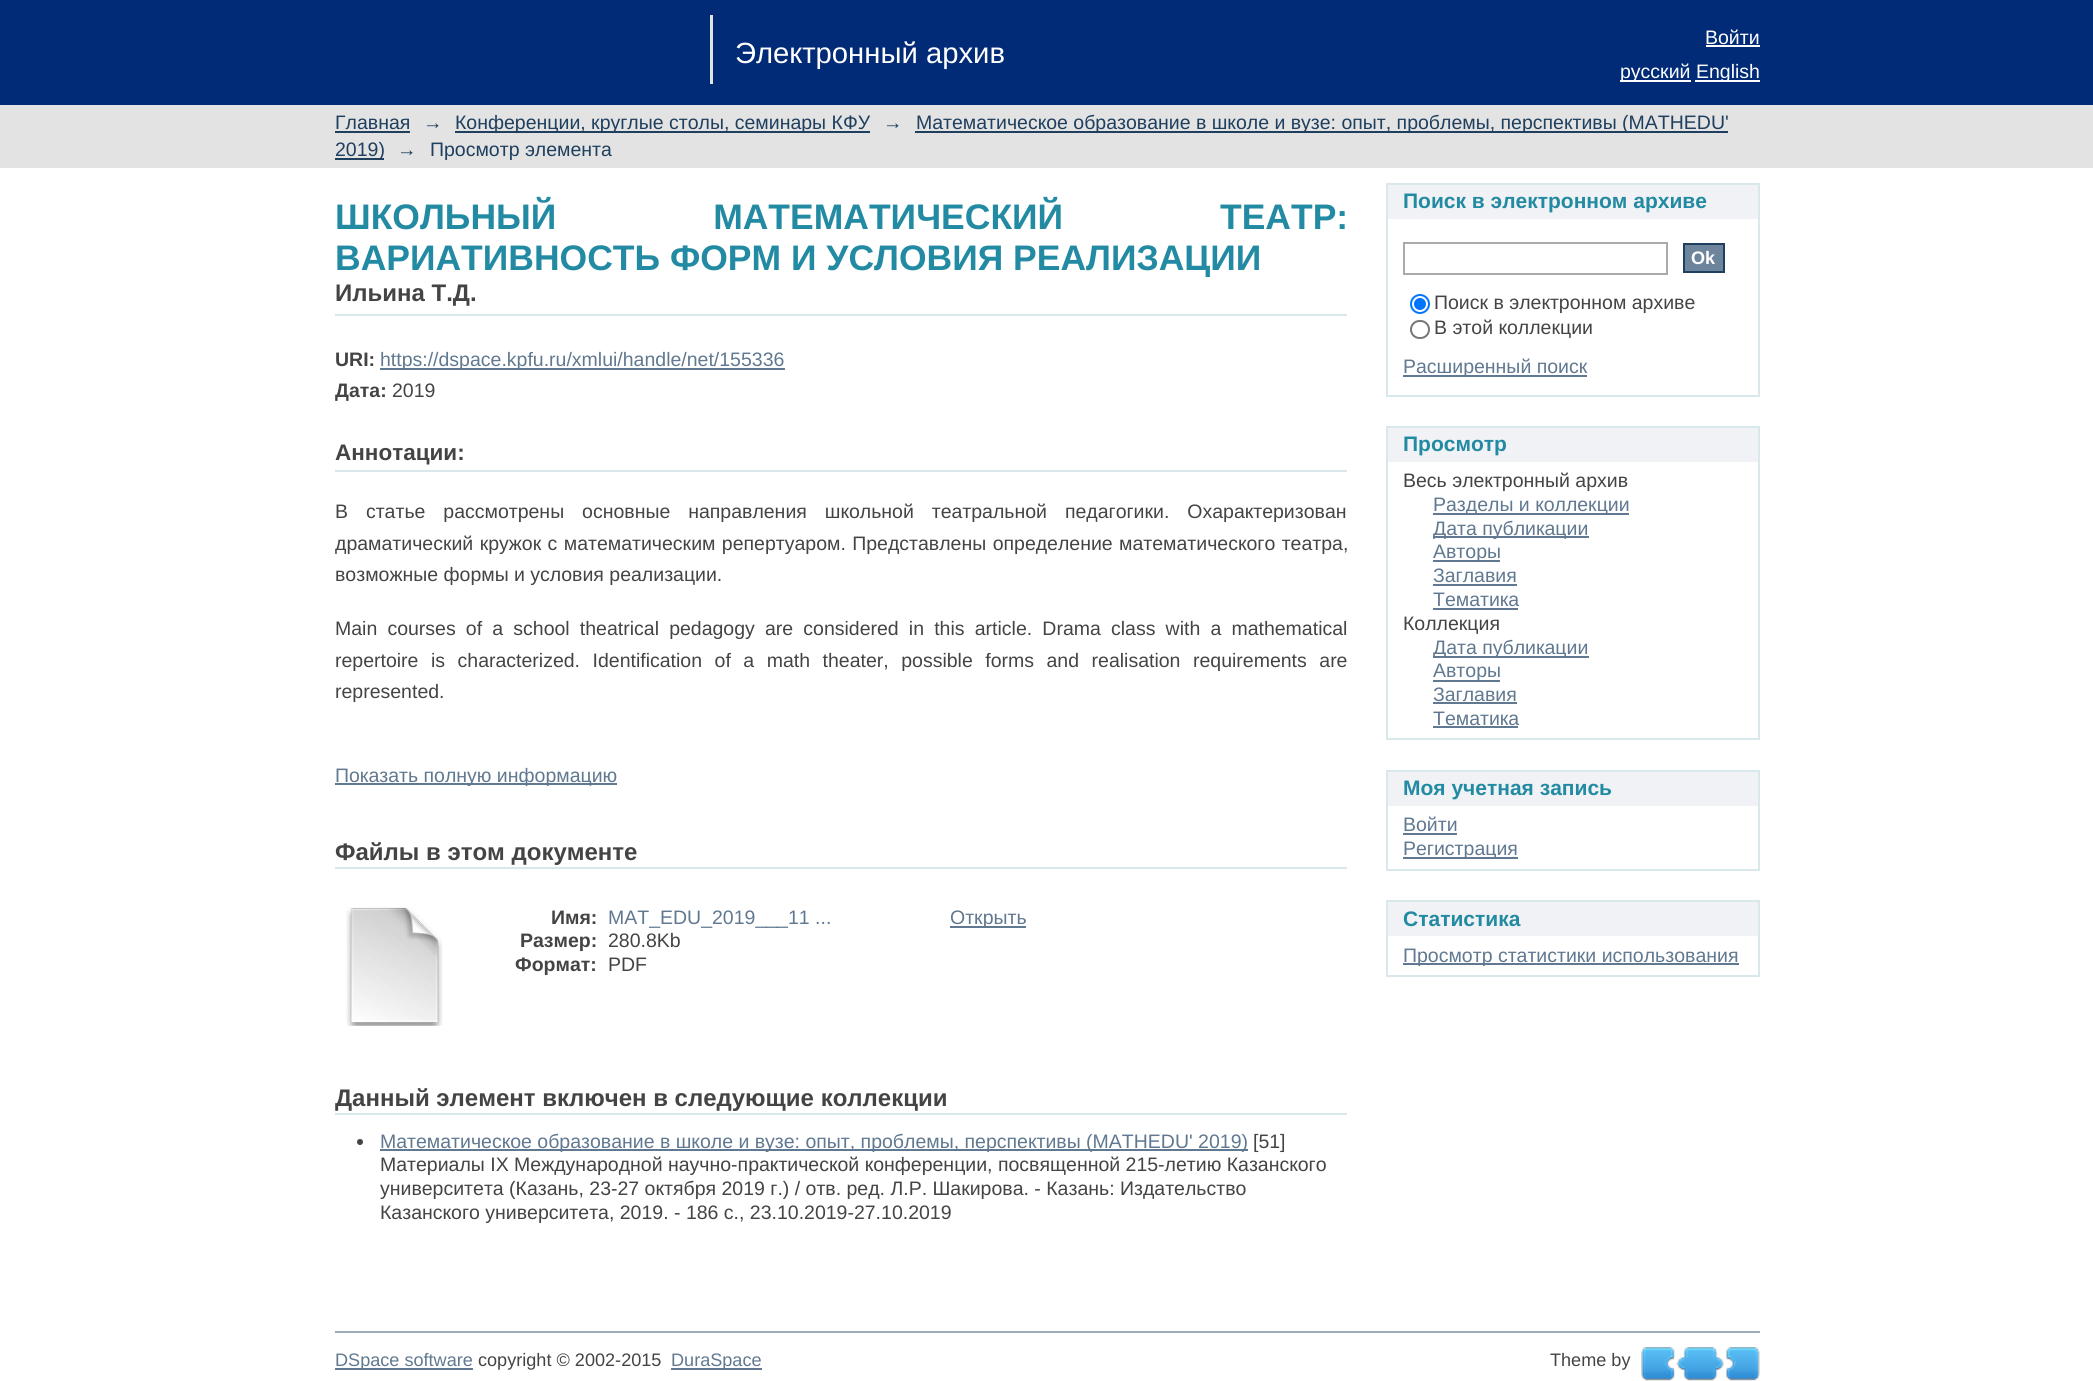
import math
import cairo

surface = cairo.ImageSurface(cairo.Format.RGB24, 2093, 1381)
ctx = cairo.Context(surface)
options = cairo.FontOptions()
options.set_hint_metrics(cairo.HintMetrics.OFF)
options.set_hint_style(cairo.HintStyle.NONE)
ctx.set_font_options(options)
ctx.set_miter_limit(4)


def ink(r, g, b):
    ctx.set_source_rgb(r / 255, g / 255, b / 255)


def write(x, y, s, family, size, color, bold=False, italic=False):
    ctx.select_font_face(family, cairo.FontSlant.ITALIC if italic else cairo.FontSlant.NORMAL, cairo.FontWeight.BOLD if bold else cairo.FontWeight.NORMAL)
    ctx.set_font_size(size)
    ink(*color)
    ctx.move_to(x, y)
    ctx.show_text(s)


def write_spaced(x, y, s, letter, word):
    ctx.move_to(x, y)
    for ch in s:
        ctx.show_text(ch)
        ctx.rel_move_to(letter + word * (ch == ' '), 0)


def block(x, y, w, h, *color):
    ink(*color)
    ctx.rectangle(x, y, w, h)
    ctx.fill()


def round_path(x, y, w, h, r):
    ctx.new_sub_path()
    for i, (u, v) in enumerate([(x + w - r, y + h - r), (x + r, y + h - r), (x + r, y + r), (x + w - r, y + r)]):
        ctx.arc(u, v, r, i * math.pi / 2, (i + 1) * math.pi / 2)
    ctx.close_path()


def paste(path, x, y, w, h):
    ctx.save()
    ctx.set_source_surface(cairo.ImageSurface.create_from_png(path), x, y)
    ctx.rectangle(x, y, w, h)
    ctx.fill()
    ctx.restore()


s1 = dict(family="Liberation Sans", size=19.5, color=(255, 255, 255))
s2 = dict(family="Liberation Sans", size=29.25, color=(255, 255, 255))
s3 = dict(family="Liberation Sans", size=19.5, color=(31, 63, 94))
s4 = dict(family="Liberation Sans", size=35.5, color=(34, 138, 162), bold=True)
s5 = dict(family="Liberation Sans", size=24, color=(68, 68, 68), bold=True)
s6 = dict(family="Liberation Sans", size=19.5, color=(68, 68, 68), bold=True)
s7 = dict(family="Liberation Sans", size=19.5, color=(96, 120, 144))
s8 = dict(family="Liberation Sans", size=19.5, color=(68, 68, 68))
s9 = dict(family="Liberation Sans", size=22.5, color=(68, 68, 68), bold=True)
s10 = dict(family="Liberation Sans", size=21, color=(34, 138, 162), bold=True)
s11 = dict(family="Liberation Sans", size=18.1, color=(255, 255, 255), bold=True)
s12 = dict(family="Liberation Sans", size=18.1, color=(96, 120, 144))
s13 = dict(family="Liberation Sans", size=18.1, color=(68, 68, 68))

ink(255, 255, 255)
ctx.paint()
block(0, 0, 2093, 105, 1, 42, 119)
write(1705, 44, "Войти", **s1)
block(1706, 45, 54, 2, 255, 255, 255)
block(710, 15, 3, 69, 227, 227, 227)
write(735, 63, "Электронный архив", **s2)
block(1620, 80, 71, 2, 255, 255, 255)
write(1620, 78, "русский", **s1)
block(1695, 80, 65, 2, 255, 255, 255)
write(1696, 78, "English", **s1)
block(0, 105, 2093, 63, 227, 227, 227)
write(335, 129, "Главная", **s3)
block(335, 131, 75, 2, 31, 63, 94)
write(423, 129, "→", **s3)
block(455, 131, 415, 2, 31, 63, 94)
write(455, 129, "Конференции, круглые столы, семинары КФУ", **s3)
write(883, 129, "→", **s3)
block(915, 131, 813, 2, 31, 63, 94)
write(916, 129, "Математическое образование в школе и вузе: опыт, проблемы, перспективы (MATHEDU'", **s3)
block(335, 158, 49, 2, 31, 63, 94)
write(335, 156, "2019)", **s3)
write(397, 156, "→", **s3)
write(430, 156, "Просмотр элемента", **s3)
ctx.select_font_face("Liberation Sans", cairo.FontSlant.NORMAL, cairo.FontWeight.BOLD)
ctx.set_font_size(35.5)
ink(34, 138, 162)
write_spaced(335, 229, "ШКОЛЬНЫЙ МАТЕМАТИЧЕСКИЙ ТЕАТР:", 0, 147)
write(335, 270, "ВАРИАТИВНОСТЬ ФОРМ И УСЛОВИЯ РЕАЛИЗАЦИИ", **s4)
block(335, 314, 1012, 2, 216, 232, 235)
write(335, 301, "Ильина Т.Д.", **s5)
write(335, 366, "URI:", **s6)
block(380, 368, 405, 2, 96, 120, 144)
write(380, 366, "https://dspace.kpfu.ru/xmlui/handle/net/155336", **s7)
write(335, 397, "Дата:", **s6)
write(392, 397, "2019", **s8)
block(335, 470, 1012, 2, 216, 232, 235)
write(335, 460, "Аннотации:", **s9)
ctx.select_font_face("Liberation Sans")
ctx.set_font_size(19.5)
write_spaced(335, 518, "В статье рассмотрены основные направления школьной театральной педагогики. Охарактеризован", 0, 12.5)
write_spaced(335, 550, "драматический кружок с математическим репертуаром. Представлены определение математического театра,", 0, 1)
write(335, 581, "возможные формы и условия реализации.", **s8)
write_spaced(335, 635, "Main courses of a school theatrical pedagogy are considered in this article. Drama class with a mathematical", 0, 4.75)
write_spaced(335, 667, "repertoire is characterized. Identification of a math theater, possible forms and realisation requirements are", 0, 7.1)
write(335, 698, "represented.", **s8)
block(335, 783, 282, 2, 96, 120, 144)
write(335, 782, "Показать полную информацию", **s7)
block(335, 867, 1012, 2, 216, 232, 235)
write(335, 860, "Файлы в этом документе", **s5)
paste("pic1.png", 346, 907, 97, 119)
write(551, 924, "Имя:", **s6)
write(608, 924, "MAT_EDU_2019___11 ...", **s7)
write(520, 947, "Размер:", **s6)
write(608, 947, "280.8Kb", **s8)
write(515, 971, "Формат:", **s6)
write(608, 971, "PDF", **s8)
block(950, 926, 76, 2, 96, 120, 144)
write(950, 924, "Открыть", **s7)
block(335, 1113, 1012, 2, 216, 232, 235)
write(335, 1106, "Данный элемент включен в следующие коллекции", **s5)
ctx.new_path()
ctx.arc(360, 1142, 3, 0, 2 * math.pi)
ctx.fill()
block(380, 1149, 868, 2, 96, 120, 144)
write(380, 1148, "Математическое образование в школе и вузе: опыт, проблемы, перспективы (MATHEDU' 2019)", **s7)
write(1253, 1148, "[51]", **s8)
write(380, 1171, "Материалы IX Международной научно-практической конференции, посвященной 215-летию Казанского", **s8)
write(380, 1195, "университета (Казань, 23-27 октября 2019 г.) / отв. ред. Л.Р. Шакирова. - Казань: Издательство", **s8)
write(380, 1219, "Казанского университета, 2019. - 186 с., 23.10.2019-27.10.2019", **s8)
block(1388, 185, 370, 34, 240, 242, 245)
block(1386, 183, 374, 2, 216, 232, 235)
block(1758, 183, 2, 213, 216, 232, 235)
block(1386, 183, 2, 36, 216, 232, 235)
write(1403, 208, "Поиск в электронном архиве", **s10)
block(1386, 395, 374, 2, 216, 232, 235)
block(1386, 219, 2, 177, 216, 232, 235)
ctx.rectangle(1404, 243, 263, 31)
ink(170, 170, 170)
ctx.stroke()
ink(109, 133, 156)
ctx.rectangle(1684, 244, 40, 28)
ctx.fill_preserve()
ink(31, 63, 94)
ctx.stroke()
write(1691, 264, "Ok", **s11)
ctx.new_path()
ctx.arc(1420, 304, 9, 0, 2 * math.pi)
ink(0, 117, 255)
ctx.stroke()
ctx.arc(1420, 304, 6, 0, 2 * math.pi)
ctx.fill()
write(1434, 309, "Поиск в электронном архиве", **s8)
round_path(1411, 321, 18, 17, 8.5)
ink(118, 118, 118)
ctx.stroke()
write(1434, 334, "В этой коллекции", **s8)
block(1403, 375, 184, 2, 96, 120, 144)
write(1403, 373, "Расширенный поиск", **s7)
block(1388, 428, 370, 34, 240, 242, 245)
block(1386, 426, 374, 2, 216, 232, 235)
block(1758, 426, 2, 314, 216, 232, 235)
block(1386, 426, 2, 36, 216, 232, 235)
write(1403, 451, "Просмотр", **s10)
block(1386, 738, 374, 2, 216, 232, 235)
block(1386, 462, 2, 278, 216, 232, 235)
write(1403, 487, "Весь электронный архив", **s8)
block(1433, 513, 196, 2, 96, 120, 144)
write(1433, 511, "Разделы и коллекции", **s7)
block(1433, 536, 156, 2, 96, 120, 144)
write(1433, 535, "Дата публикации", **s7)
block(1433, 560, 67, 2, 96, 120, 144)
write(1433, 558, "Авторы", **s7)
write(1433, 582, "Заглавия", **s7)
block(1433, 584, 84, 2, 96, 120, 144)
write(1433, 606, "Тематика", **s7)
block(1433, 608, 85, 2, 96, 120, 144)
write(1403, 630, "Коллекция", **s8)
block(1433, 656, 156, 2, 96, 120, 144)
write(1433, 654, "Дата публикации", **s7)
block(1433, 680, 67, 2, 96, 120, 144)
write(1433, 677, "Авторы", **s7)
write(1433, 701, "Заглавия", **s7)
block(1433, 702, 84, 2, 96, 120, 144)
write(1433, 725, "Тематика", **s7)
block(1433, 726, 85, 2, 96, 120, 144)
block(1388, 772, 370, 34, 240, 242, 245)
block(1386, 770, 374, 2, 216, 232, 235)
block(1758, 770, 2, 100, 216, 232, 235)
block(1386, 770, 2, 36, 216, 232, 235)
write(1403, 795, "Моя учетная запись", **s10)
block(1386, 869, 374, 2, 216, 232, 235)
block(1386, 806, 2, 64, 216, 232, 235)
write(1403, 831, "Войти", **s7)
block(1403, 833, 54, 2, 96, 120, 144)
block(1403, 857, 115, 2, 96, 120, 144)
write(1403, 855, "Регистрация", **s7)
block(1388, 902, 370, 34, 240, 242, 245)
block(1386, 900, 374, 2, 216, 232, 235)
block(1758, 900, 2, 77, 216, 232, 235)
block(1386, 900, 2, 36, 216, 232, 235)
write(1403, 926, "Статистика", **s10)
block(1386, 975, 374, 2, 216, 232, 235)
block(1386, 936, 2, 41, 216, 232, 235)
block(1403, 963, 336, 2, 96, 120, 144)
write(1403, 962, "Просмотр статистики использования", **s7)
block(335, 1331, 1425, 2, 156, 172, 186)
block(335, 1368, 138, 2, 96, 120, 144)
write(335, 1366, "DSpace software", **s12)
write(478, 1366, "copyright © 2002-2015", **s13)
block(671, 1368, 91, 2, 96, 120, 144)
write(671, 1366, "DuraSpace", **s12)
write(1550, 1366, "Theme by", **s13)
paste("pic2.png", 1641, 1347, 119, 34)
surface.write_to_png("screenshot.png")
